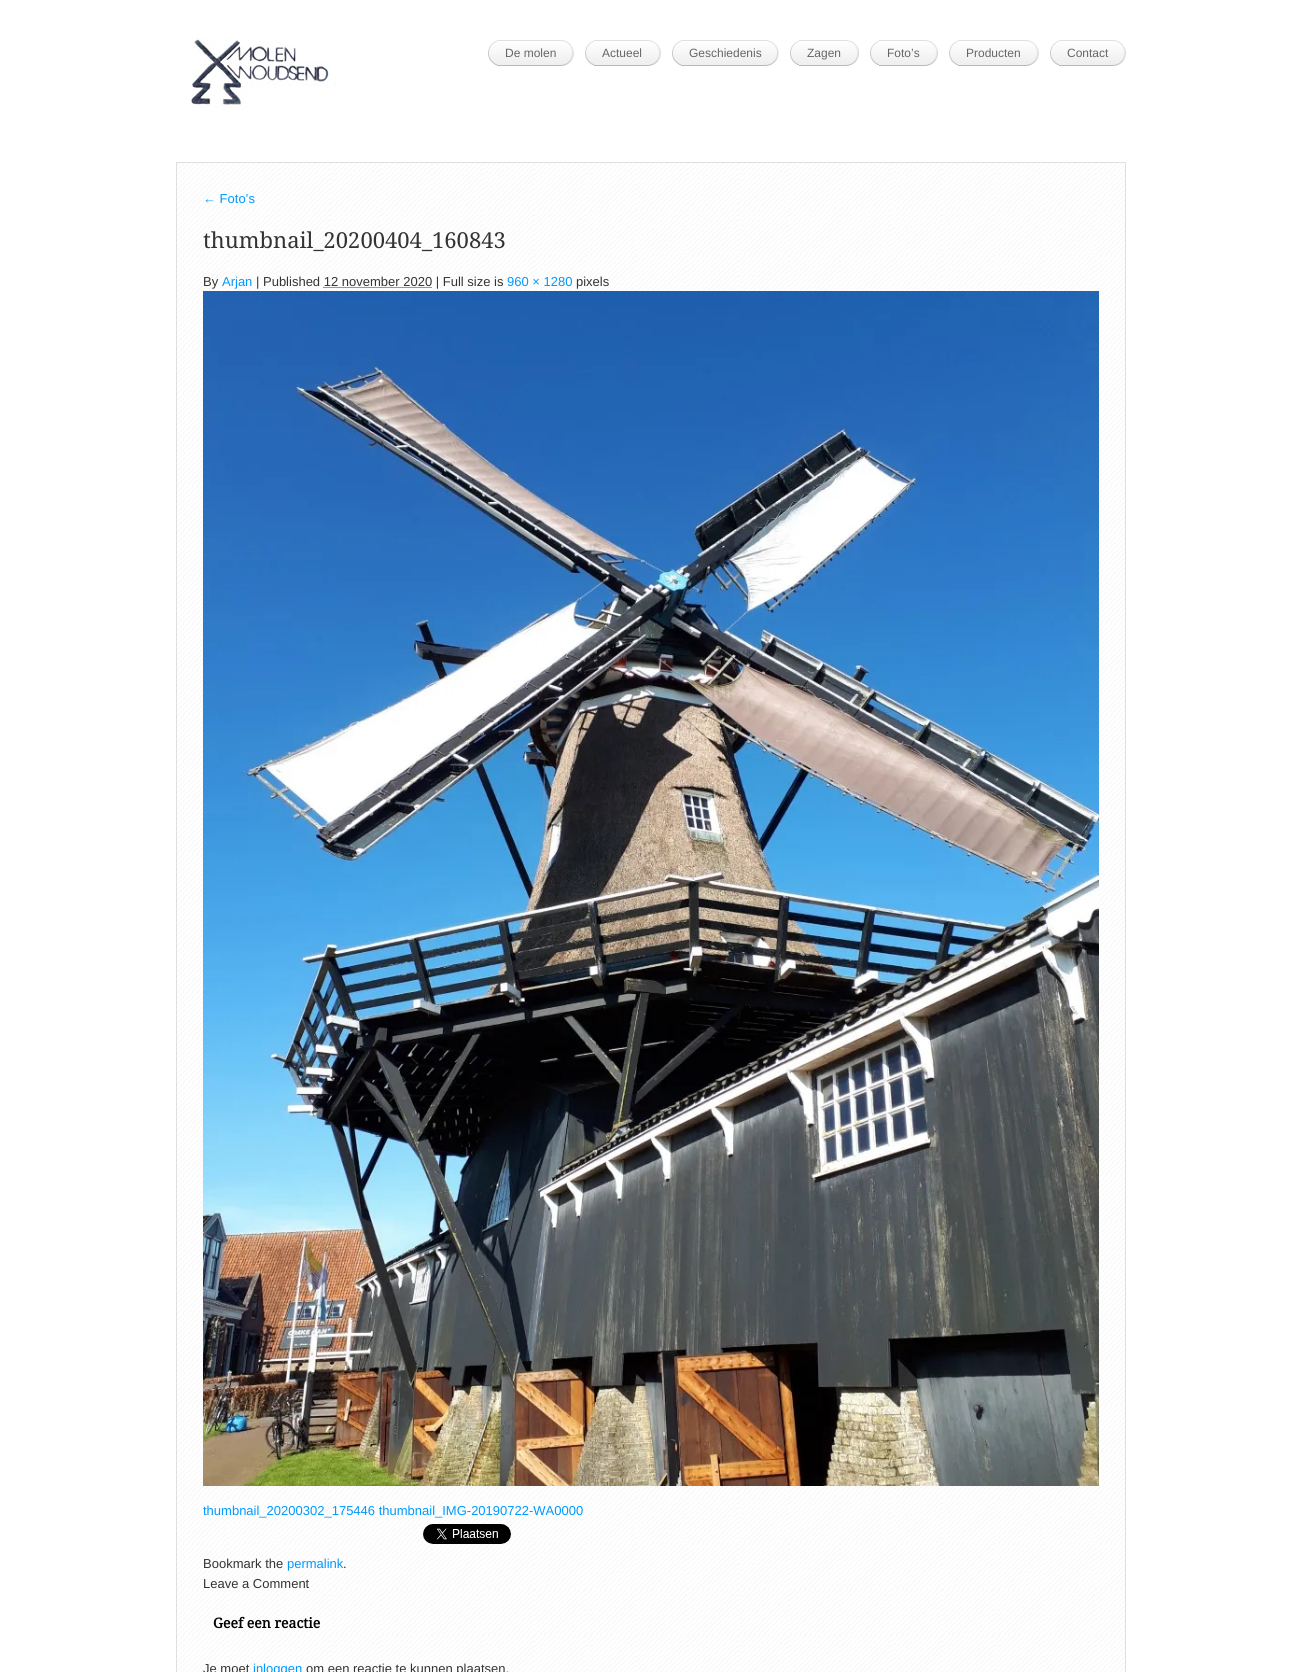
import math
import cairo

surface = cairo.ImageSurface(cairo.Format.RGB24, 1302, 1672)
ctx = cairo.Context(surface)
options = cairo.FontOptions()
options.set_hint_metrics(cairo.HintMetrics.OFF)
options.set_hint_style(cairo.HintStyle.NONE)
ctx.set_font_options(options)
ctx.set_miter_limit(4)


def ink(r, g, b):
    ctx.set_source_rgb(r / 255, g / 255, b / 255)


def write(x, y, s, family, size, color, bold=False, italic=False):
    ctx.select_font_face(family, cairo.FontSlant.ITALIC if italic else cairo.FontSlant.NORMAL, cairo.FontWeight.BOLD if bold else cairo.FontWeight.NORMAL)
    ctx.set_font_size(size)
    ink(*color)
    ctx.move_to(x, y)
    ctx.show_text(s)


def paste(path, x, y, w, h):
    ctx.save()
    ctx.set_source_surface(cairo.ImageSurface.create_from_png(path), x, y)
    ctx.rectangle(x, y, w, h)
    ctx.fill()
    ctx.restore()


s1 = dict(family="Liberation Sans", size=12, color=(102, 102, 102))
s2 = dict(family="Liberation Sans", size=13, color=(0, 153, 255))
s3 = dict(family="Droid Serif", size=22, color=(51, 51, 51))
s4 = dict(family="Liberation Sans", size=13, color=(51, 51, 51))
s5 = dict(family="Droid Serif", size=14, color=(0, 0, 0), bold=True)

ink(255, 255, 255)
ctx.paint()
paste("pic1.png", 191, 38, 145, 71)
paste("pic2.png", 488, 40, 9, 26)
paste("pic3.png", 497, 40, 77, 26)
write(505, 57, "De molen", **s1)
paste("pic4.png", 585, 40, 9, 26)
paste("pic5.png", 594, 40, 67, 26)
write(602, 57, "Actueel", **s1)
paste("pic6.png", 672, 40, 9, 26)
paste("pic7.png", 681, 40, 98, 26)
write(689, 57, "Geschiedenis", **s1)
paste("pic2.png", 790, 40, 9, 26)
paste("pic8.png", 799, 40, 60, 26)
write(807, 57, "Zagen", **s1)
paste("pic9.png", 870, 40, 9, 26)
paste("pic10.png", 879, 40, 59, 26)
write(887, 57, "Foto’s", **s1)
paste("pic9.png", 949, 40, 9, 26)
paste("pic11.png", 958, 40, 81, 26)
write(966, 57, "Producten", **s1)
paste("pic2.png", 1050, 40, 9, 26)
paste("pic12.png", 1059, 40, 67, 26)
write(1067, 57, "Contact", **s1)
paste("pic13.png", 177, 163, 948, 1509)
ctx.rectangle(176.5, 162.5, 949, 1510)
ink(223, 223, 223)
ctx.set_line_width(1)
ctx.stroke()
write(203, 203, "← Foto’s", **s2)
write(203, 248, "thumbnail_20200404_160843", **s3)
write(203, 286, "By", **s4)
write(222, 286, "Arjan", **s2)
write(256, 286, "| Published 12 november 2020 | Full size is", **s4)
write(507, 286, "960 × 1280", **s2)
write(576, 286, "pixels", **s4)
ctx.new_path()
ctx.move_to(323.5, 287.5)
ctx.line_to(432, 287.5)
ctx.set_dash([1, 1])
ctx.stroke()
paste("pic14.png", 203, 291, 896, 1195)
write(203, 1515, "thumbnail_20200302_175446 thumbnail_IMG-20190722-WA0000", **s2)
paste("pic15.png", 423, 1524, 88, 20)
write(203, 1568, "Bookmark the", **s4)
write(287, 1568, "permalink", **s2)
write(343, 1568, ".", **s4)
write(203, 1588, "Leave a Comment", **s4)
write(213, 1628, "Geef een reactie", **s5)
write(203, 1673, "Je moet", **s4)
write(253, 1673, "inloggen", **s2)
write(306, 1673, "om een reactie te kunnen plaatsen.", **s4)
surface.write_to_png("screenshot.png")
